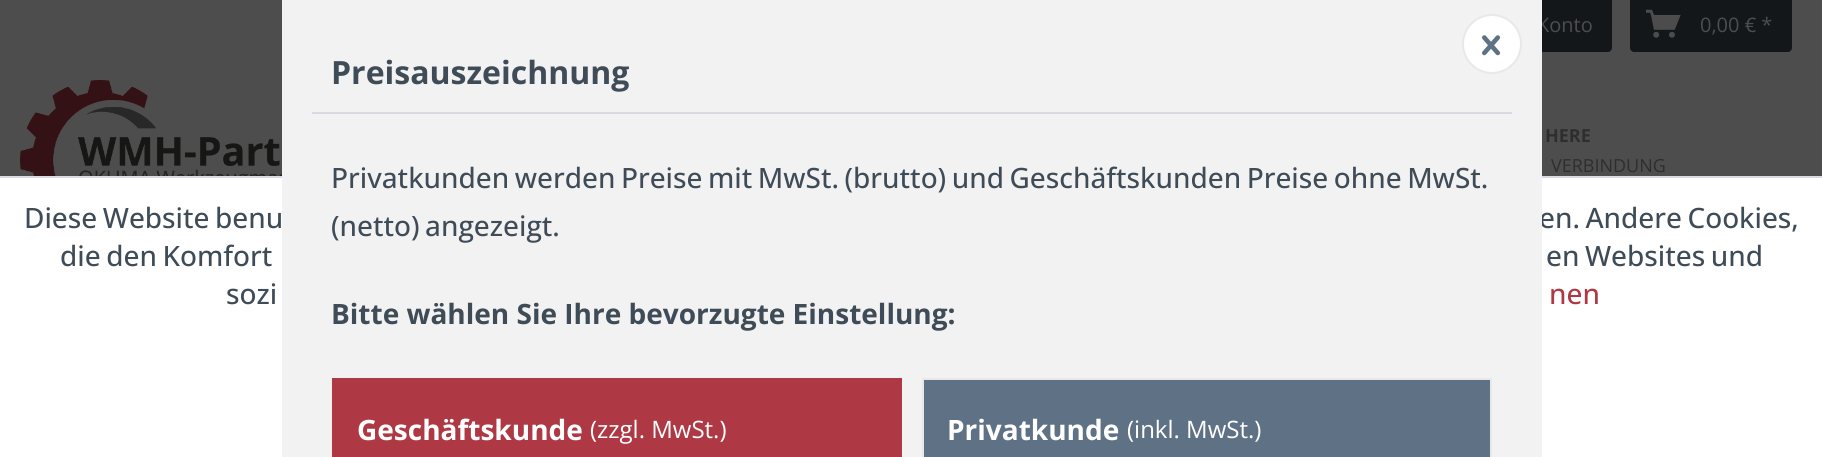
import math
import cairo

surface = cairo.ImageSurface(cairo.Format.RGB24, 1822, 457)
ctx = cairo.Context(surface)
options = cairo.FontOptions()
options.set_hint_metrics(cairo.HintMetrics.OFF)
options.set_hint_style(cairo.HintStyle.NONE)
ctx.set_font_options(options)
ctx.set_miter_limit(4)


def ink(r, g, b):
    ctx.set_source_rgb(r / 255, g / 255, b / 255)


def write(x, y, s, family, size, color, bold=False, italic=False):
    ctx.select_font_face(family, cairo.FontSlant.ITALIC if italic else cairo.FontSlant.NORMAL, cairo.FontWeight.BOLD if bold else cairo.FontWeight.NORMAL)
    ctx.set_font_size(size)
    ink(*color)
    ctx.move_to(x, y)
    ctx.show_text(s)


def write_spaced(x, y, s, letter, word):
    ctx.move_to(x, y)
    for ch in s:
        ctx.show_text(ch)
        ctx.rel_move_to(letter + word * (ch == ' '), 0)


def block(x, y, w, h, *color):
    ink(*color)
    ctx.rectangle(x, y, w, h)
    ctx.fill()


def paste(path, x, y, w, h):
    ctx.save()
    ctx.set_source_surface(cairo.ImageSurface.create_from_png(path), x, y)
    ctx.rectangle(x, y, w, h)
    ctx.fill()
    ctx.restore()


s1 = dict(family="Open Sans", size=20, color=(77, 77, 77))
s2 = dict(family="Open Sans", size=32, color=(63, 76, 88), bold=True)
s3 = dict(family="Open Sans", size=28, color=(63, 76, 88), bold=True)
s4 = dict(family="Open Sans", size=28, color=(255, 255, 255), bold=True)
s5 = dict(family="Open Sans", size=24, color=(255, 255, 255))
s6 = dict(family="Open Sans", size=18, color=(46, 46, 46), bold=True)
s7 = dict(family="Open Sans", size=18, color=(46, 46, 46))
s8 = dict(family="Open Sans Medium", size=28, color=(174, 57, 68))

ink(77, 77, 77)
ctx.paint()
ink(19, 23, 26)
ctx.new_path()
ctx.move_to(1424, -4)
ctx.line_to(1612, -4)
ctx.line_to(1612, 48)
ctx.curve_to(1612, 50, 1610, 52, 1608, 52)
ctx.line_to(1428, 52)
ctx.curve_to(1426, 52, 1424, 50, 1424, 48)
ctx.close_path()
ctx.fill()
write(1537, 32, "Konto", **s1)
block(0, 178, 1822, 279, 255, 255, 255)
block(0, 176, 1822, 2, 218, 218, 229)
ctx.select_font_face("Open Sans Medium")
ctx.set_font_size(28)
ink(63, 76, 88)
write_spaced(1539, 228, "en. Andere Cookies,", 0, -1.75)
block(282, 0, 1260, 457, 242, 242, 242)
block(312, 112, 1200, 2, 218, 218, 229)
write(331, 84, "Preisauszeichnung", **s2)
ink(255, 255, 255)
ctx.new_path()
ctx.arc(1492, 44, 29, 0, 2 * math.pi)
ctx.fill_preserve()
ink(232, 232, 232)
ctx.stroke()
paste("pic1.png", 1482, 35, 19, 21)
ctx.select_font_face("Open Sans Medium")
ctx.set_font_size(28)
ink(63, 76, 88)
write_spaced(331, 188, "Privatkunden werden Preise mit MwSt. (brutto) und Geschäftskunden Preise ohne MwSt.", 0, -1.75)
write_spaced(331, 236, "(netto) angezeigt.", 0, -1.75)
write(331, 324, "Bitte wählen Sie Ihre bevorzugte Einstellung:", **s3)
block(332, 378, 570, 79, 174, 57, 68)
write(357, 440, "Geschäftskunde", **s4)
write(590, 438, "(zzgl. MwSt.)", **s5)
ink(95, 114, 133)
ctx.rectangle(923, 379, 568, 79)
ctx.fill_preserve()
ink(232, 232, 232)
ctx.stroke()
write(947, 440, "Privatkunde", **s4)
write(1127, 438, "(inkl. MwSt.)", **s5)
ink(19, 23, 26)
ctx.new_path()
ctx.move_to(1630, -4)
ctx.line_to(1792, -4)
ctx.line_to(1792, 48)
ctx.curve_to(1792, 50, 1790, 52, 1788, 52)
ctx.line_to(1634, 52)
ctx.curve_to(1632, 52, 1630, 50, 1630, 48)
ctx.close_path()
ctx.fill()
paste("pic2.png", 1646, 9, 35, 29)
write(1700, 32, "0,00 € *", **s1)
paste("pic3.png", 20, 80, 262, 96)
write(1545, 142, "HERE", **s6)
write(1551, 172, "VERBINDUNG", **s7)
ctx.select_font_face("Open Sans Medium")
ctx.set_font_size(28)
ink(63, 76, 88)
write_spaced(24, 228, "Diese Website benu", 0, -1.75)
write_spaced(60, 266, "die den Komfort", 0, -1.75)
write_spaced(1546, 266, "en Websites und", 0, -1.75)
write_spaced(226, 304, "sozi", 0, -2)
write(1549, 304, "nen", **s8)
surface.write_to_png("screenshot.png")
